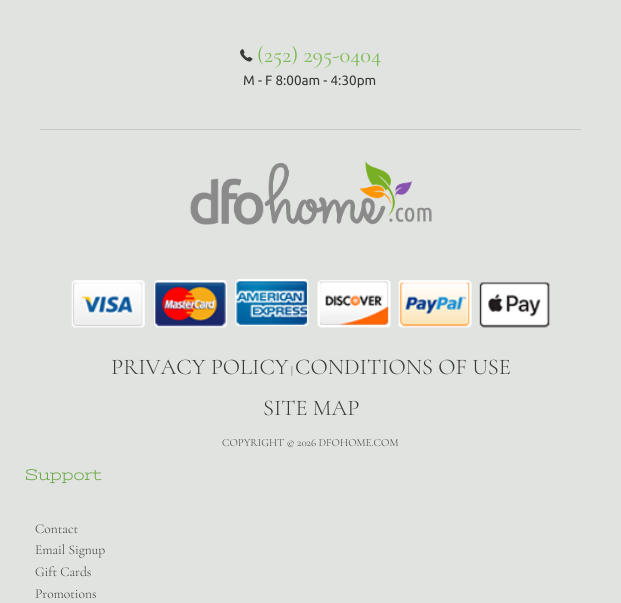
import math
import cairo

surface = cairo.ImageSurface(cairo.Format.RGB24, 621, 603)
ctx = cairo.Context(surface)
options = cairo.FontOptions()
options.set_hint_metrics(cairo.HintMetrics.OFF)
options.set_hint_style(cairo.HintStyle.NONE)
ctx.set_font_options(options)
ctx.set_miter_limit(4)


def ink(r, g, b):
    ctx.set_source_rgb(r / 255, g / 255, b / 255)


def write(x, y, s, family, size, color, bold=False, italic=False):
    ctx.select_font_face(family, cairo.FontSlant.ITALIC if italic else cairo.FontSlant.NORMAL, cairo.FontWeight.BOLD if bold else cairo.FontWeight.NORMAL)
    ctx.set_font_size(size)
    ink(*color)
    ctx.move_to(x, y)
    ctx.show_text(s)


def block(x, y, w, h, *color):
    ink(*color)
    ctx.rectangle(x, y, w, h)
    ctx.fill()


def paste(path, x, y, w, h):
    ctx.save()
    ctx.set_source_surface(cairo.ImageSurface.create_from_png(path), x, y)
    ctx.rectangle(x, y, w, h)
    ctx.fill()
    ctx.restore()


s1 = dict(family="Cormorant Garamond", size=22.5, color=(124, 186, 84))
s2 = dict(family="Ubuntu", size=13.5, color=(57, 57, 57))
s3 = dict(family="Cormorant Garamond Light", size=22.5, color=(57, 57, 57))
s4 = dict(family="Cormorant Garamond Light", size=10.9, color=(57, 57, 57))
s5 = dict(family="Stint Ultra Expanded", size=16, color=(108, 168, 69))
s6 = dict(family="Cormorant Garamond Light", size=13.5, color=(57, 57, 57))

ink(225, 227, 224)
ctx.paint()
paste("pic1.png", 240, 49, 13, 13)
write(257, 62, "(252) 295-0404", **s1)
write(243, 85, "M - F 8:00am - 4:30pm", **s2)
block(40, 129, 541, 1, 202, 202, 202)
paste("pic2.png", 190, 161, 242, 64)
paste("pic3.png", 71, 279, 479, 49)
write(111, 374, "PRIVACY POLICY", **s3)
write(291, 374, "|", **s4)
write(295, 374, "CONDITIONS OF USE", **s3)
write(263, 415, "SITE MAP", **s3)
write(222, 446, "COPYRIGHT © 2026 DFOHOME.COM", **s4)
write(25, 480, "Support", **s5)
write(35, 533, "Contact", **s6)
write(35, 554, "Email Signup", **s6)
write(35, 576, "Gift Cards", **s6)
write(35, 598, "Promotions", **s6)
surface.write_to_png("screenshot.png")
